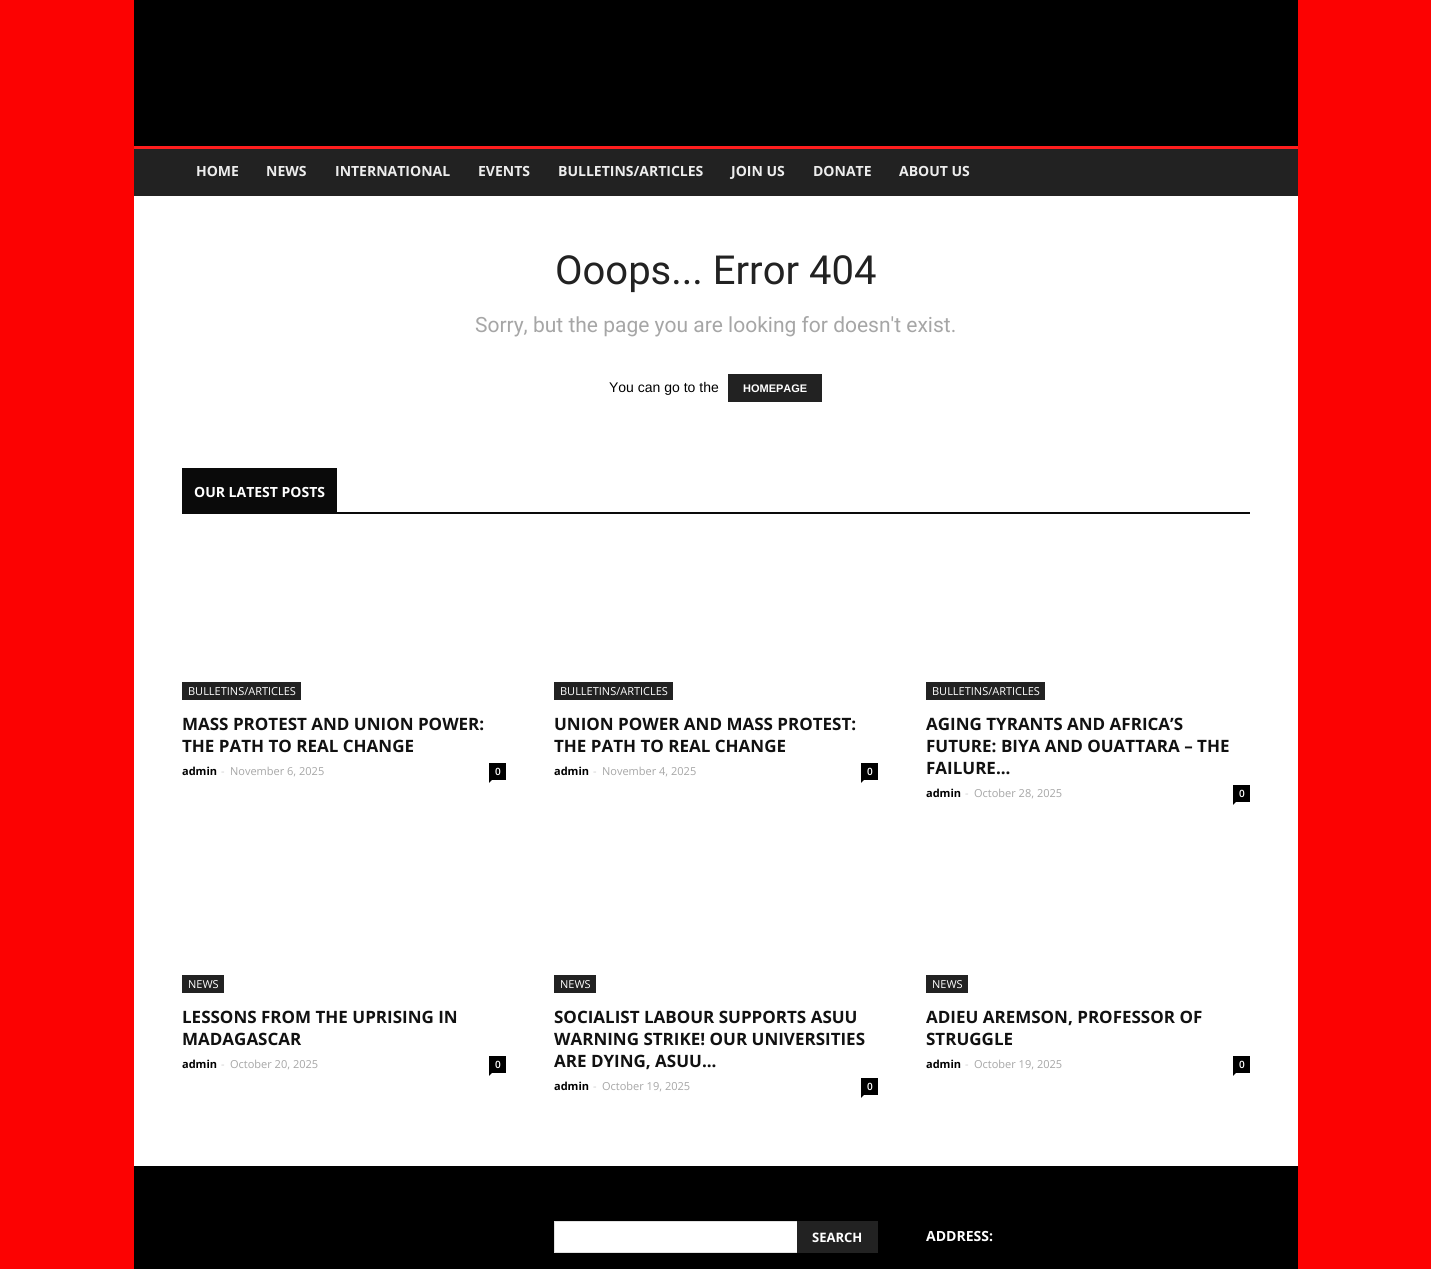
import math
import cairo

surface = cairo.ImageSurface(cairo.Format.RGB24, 1431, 1269)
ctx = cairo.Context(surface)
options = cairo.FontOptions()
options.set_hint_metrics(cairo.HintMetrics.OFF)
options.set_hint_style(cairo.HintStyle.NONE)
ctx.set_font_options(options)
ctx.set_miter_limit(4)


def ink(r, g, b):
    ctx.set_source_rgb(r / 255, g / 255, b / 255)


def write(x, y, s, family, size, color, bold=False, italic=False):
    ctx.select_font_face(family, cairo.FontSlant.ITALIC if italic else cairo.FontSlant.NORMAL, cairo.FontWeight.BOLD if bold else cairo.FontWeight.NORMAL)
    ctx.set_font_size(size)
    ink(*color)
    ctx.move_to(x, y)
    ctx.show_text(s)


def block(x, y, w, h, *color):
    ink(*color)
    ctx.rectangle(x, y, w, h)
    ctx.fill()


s1 = dict(family="Open Sans", size=14, color=(237, 237, 237), bold=True)
s2 = dict(family="Roboto", size=40, color=(34, 34, 34))
s3 = dict(family="Roboto", size=21, color=(166, 166, 166))
s4 = dict(family="Liberation Sans", size=14, color=(0, 0, 0))
s5 = dict(family="Liberation Sans", size=11, color=(255, 255, 255), bold=True)
s6 = dict(family="Open Sans", size=14, color=(255, 255, 255), bold=True)
s7 = dict(family="Open Sans", size=11, color=(255, 255, 255))
s8 = dict(family="Open Sans", size=17, color=(17, 17, 17), bold=True)
s9 = dict(family="Open Sans", size=11, color=(0, 0, 0), bold=True)
s10 = dict(family="Open Sans", size=11, color=(204, 204, 204))
s11 = dict(family="Open Sans", size=11, color=(166, 166, 166))
s12 = dict(family="Open Sans SemiBold", size=10, color=(255, 255, 255))
s13 = dict(family="Open Sans", size=13, color=(255, 255, 255), bold=True)

ink(252, 2, 2)
ctx.paint()
block(134, 0, 1164, 146, 0, 0, 0)
block(134, 149, 1164, 47, 34, 34, 34)
block(134, 146, 1164, 3, 255, 30, 30)
write(196, 176, "HOME", **s1)
write(266, 176, "NEWS", **s1)
write(335, 176, "INTERNATIONAL", **s1)
write(478, 176, "EVENTS", **s1)
write(558, 176, "BULLETINS/ARTICLES", **s1)
write(731, 176, "JOIN US", **s1)
write(813, 176, "DONATE", **s1)
write(899, 176, "ABOUT US", **s1)
block(134, 196, 1164, 970, 255, 255, 255)
write(555, 284, "Ooops... Error 404", **s2)
write(475, 332, "Sorry, but the page you are looking for doesn't exist.", **s3)
write(609, 392, "You can go to the", **s4)
block(728, 374, 94, 28, 34, 34, 34)
write(743, 392, "HOMEPAGE", **s5)
block(182, 512, 1068, 2, 10, 10, 10)
block(182, 468, 155, 44, 10, 10, 10)
write(194, 497, "OUR LATEST POSTS", **s6)
block(182, 682, 119, 18, 34, 34, 34)
write(188, 695, "BULLETINS/ARTICLES", **s7)
write(182, 730, "MASS PROTEST AND UNION POWER:", **s8)
write(182, 752, "THE PATH TO REAL CHANGE", **s8)
write(182, 775, "admin", **s9)
write(221, 775, "-", **s10)
write(230, 775, "November 6, 2025", **s11)
block(489, 763, 17, 17, 0, 0, 0)
write(495, 775, "0", **s12)
ink(0, 0, 0)
ctx.new_path()
ctx.move_to(489, 780)
ctx.line_to(492, 780)
ctx.line_to(489, 783)
ctx.close_path()
ctx.fill()
block(554, 682, 119, 18, 34, 34, 34)
write(560, 695, "BULLETINS/ARTICLES", **s7)
write(554, 730, "UNION POWER AND MASS PROTEST:", **s8)
write(554, 752, "THE PATH TO REAL CHANGE", **s8)
write(554, 775, "admin", **s9)
write(593, 775, "-", **s10)
write(602, 775, "November 4, 2025", **s11)
block(861, 763, 17, 17, 0, 0, 0)
write(867, 775, "0", **s12)
ink(0, 0, 0)
ctx.new_path()
ctx.move_to(861, 780)
ctx.line_to(864, 780)
ctx.line_to(861, 783)
ctx.close_path()
ctx.fill()
block(926, 682, 119, 18, 34, 34, 34)
write(932, 695, "BULLETINS/ARTICLES", **s7)
write(926, 730, "AGING TYRANTS AND AFRICA’S", **s8)
write(926, 752, "FUTURE: BIYA AND OUATTARA – THE", **s8)
write(926, 774, "FAILURE...", **s8)
write(926, 797, "admin", **s9)
write(965, 797, "-", **s10)
write(974, 797, "October 28, 2025", **s11)
block(1233, 785, 17, 17, 0, 0, 0)
write(1239, 797, "0", **s12)
ink(0, 0, 0)
ctx.new_path()
ctx.move_to(1233, 802)
ctx.line_to(1236, 802)
ctx.line_to(1233, 805)
ctx.close_path()
ctx.fill()
block(182, 975, 42, 18, 34, 34, 34)
write(188, 988, "NEWS", **s7)
write(182, 1023, "LESSONS FROM THE UPRISING IN", **s8)
write(182, 1045, "MADAGASCAR", **s8)
write(182, 1068, "admin", **s9)
write(221, 1068, "-", **s10)
write(230, 1068, "October 20, 2025", **s11)
block(489, 1056, 17, 17, 0, 0, 0)
write(495, 1068, "0", **s12)
ink(0, 0, 0)
ctx.new_path()
ctx.move_to(489, 1073)
ctx.line_to(492, 1073)
ctx.line_to(489, 1076)
ctx.close_path()
ctx.fill()
block(554, 975, 42, 18, 34, 34, 34)
write(560, 988, "NEWS", **s7)
write(554, 1023, "SOCIALIST LABOUR SUPPORTS ASUU", **s8)
write(554, 1045, "WARNING STRIKE! OUR UNIVERSITIES", **s8)
write(554, 1067, "ARE DYING, ASUU...", **s8)
write(554, 1090, "admin", **s9)
write(593, 1090, "-", **s10)
write(602, 1090, "October 19, 2025", **s11)
block(861, 1078, 17, 17, 0, 0, 0)
write(867, 1090, "0", **s12)
ink(0, 0, 0)
ctx.new_path()
ctx.move_to(861, 1095)
ctx.line_to(864, 1095)
ctx.line_to(861, 1098)
ctx.close_path()
ctx.fill()
block(926, 975, 42, 18, 34, 34, 34)
write(932, 988, "NEWS", **s7)
write(926, 1023, "ADIEU AREMSON, PROFESSOR OF", **s8)
write(926, 1045, "STRUGGLE", **s8)
write(926, 1068, "admin", **s9)
write(965, 1068, "-", **s10)
write(974, 1068, "October 19, 2025", **s11)
block(1233, 1056, 17, 17, 0, 0, 0)
write(1239, 1068, "0", **s12)
ink(0, 0, 0)
ctx.new_path()
ctx.move_to(1233, 1073)
ctx.line_to(1236, 1073)
ctx.line_to(1233, 1076)
ctx.close_path()
ctx.fill()
block(134, 1166, 1164, 103, 0, 0, 0)
block(555, 1222, 242, 30, 255, 255, 255)
block(554, 1221, 243, 1, 225, 225, 225)
block(554, 1252, 243, 1, 225, 225, 225)
block(554, 1221, 1, 32, 225, 225, 225)
block(797, 1221, 81, 32, 34, 34, 34)
write(812, 1242, "SEARCH", **s13)
write(926, 1241, "ADDRESS:", **s6)
surface.write_to_png("screenshot.png")
